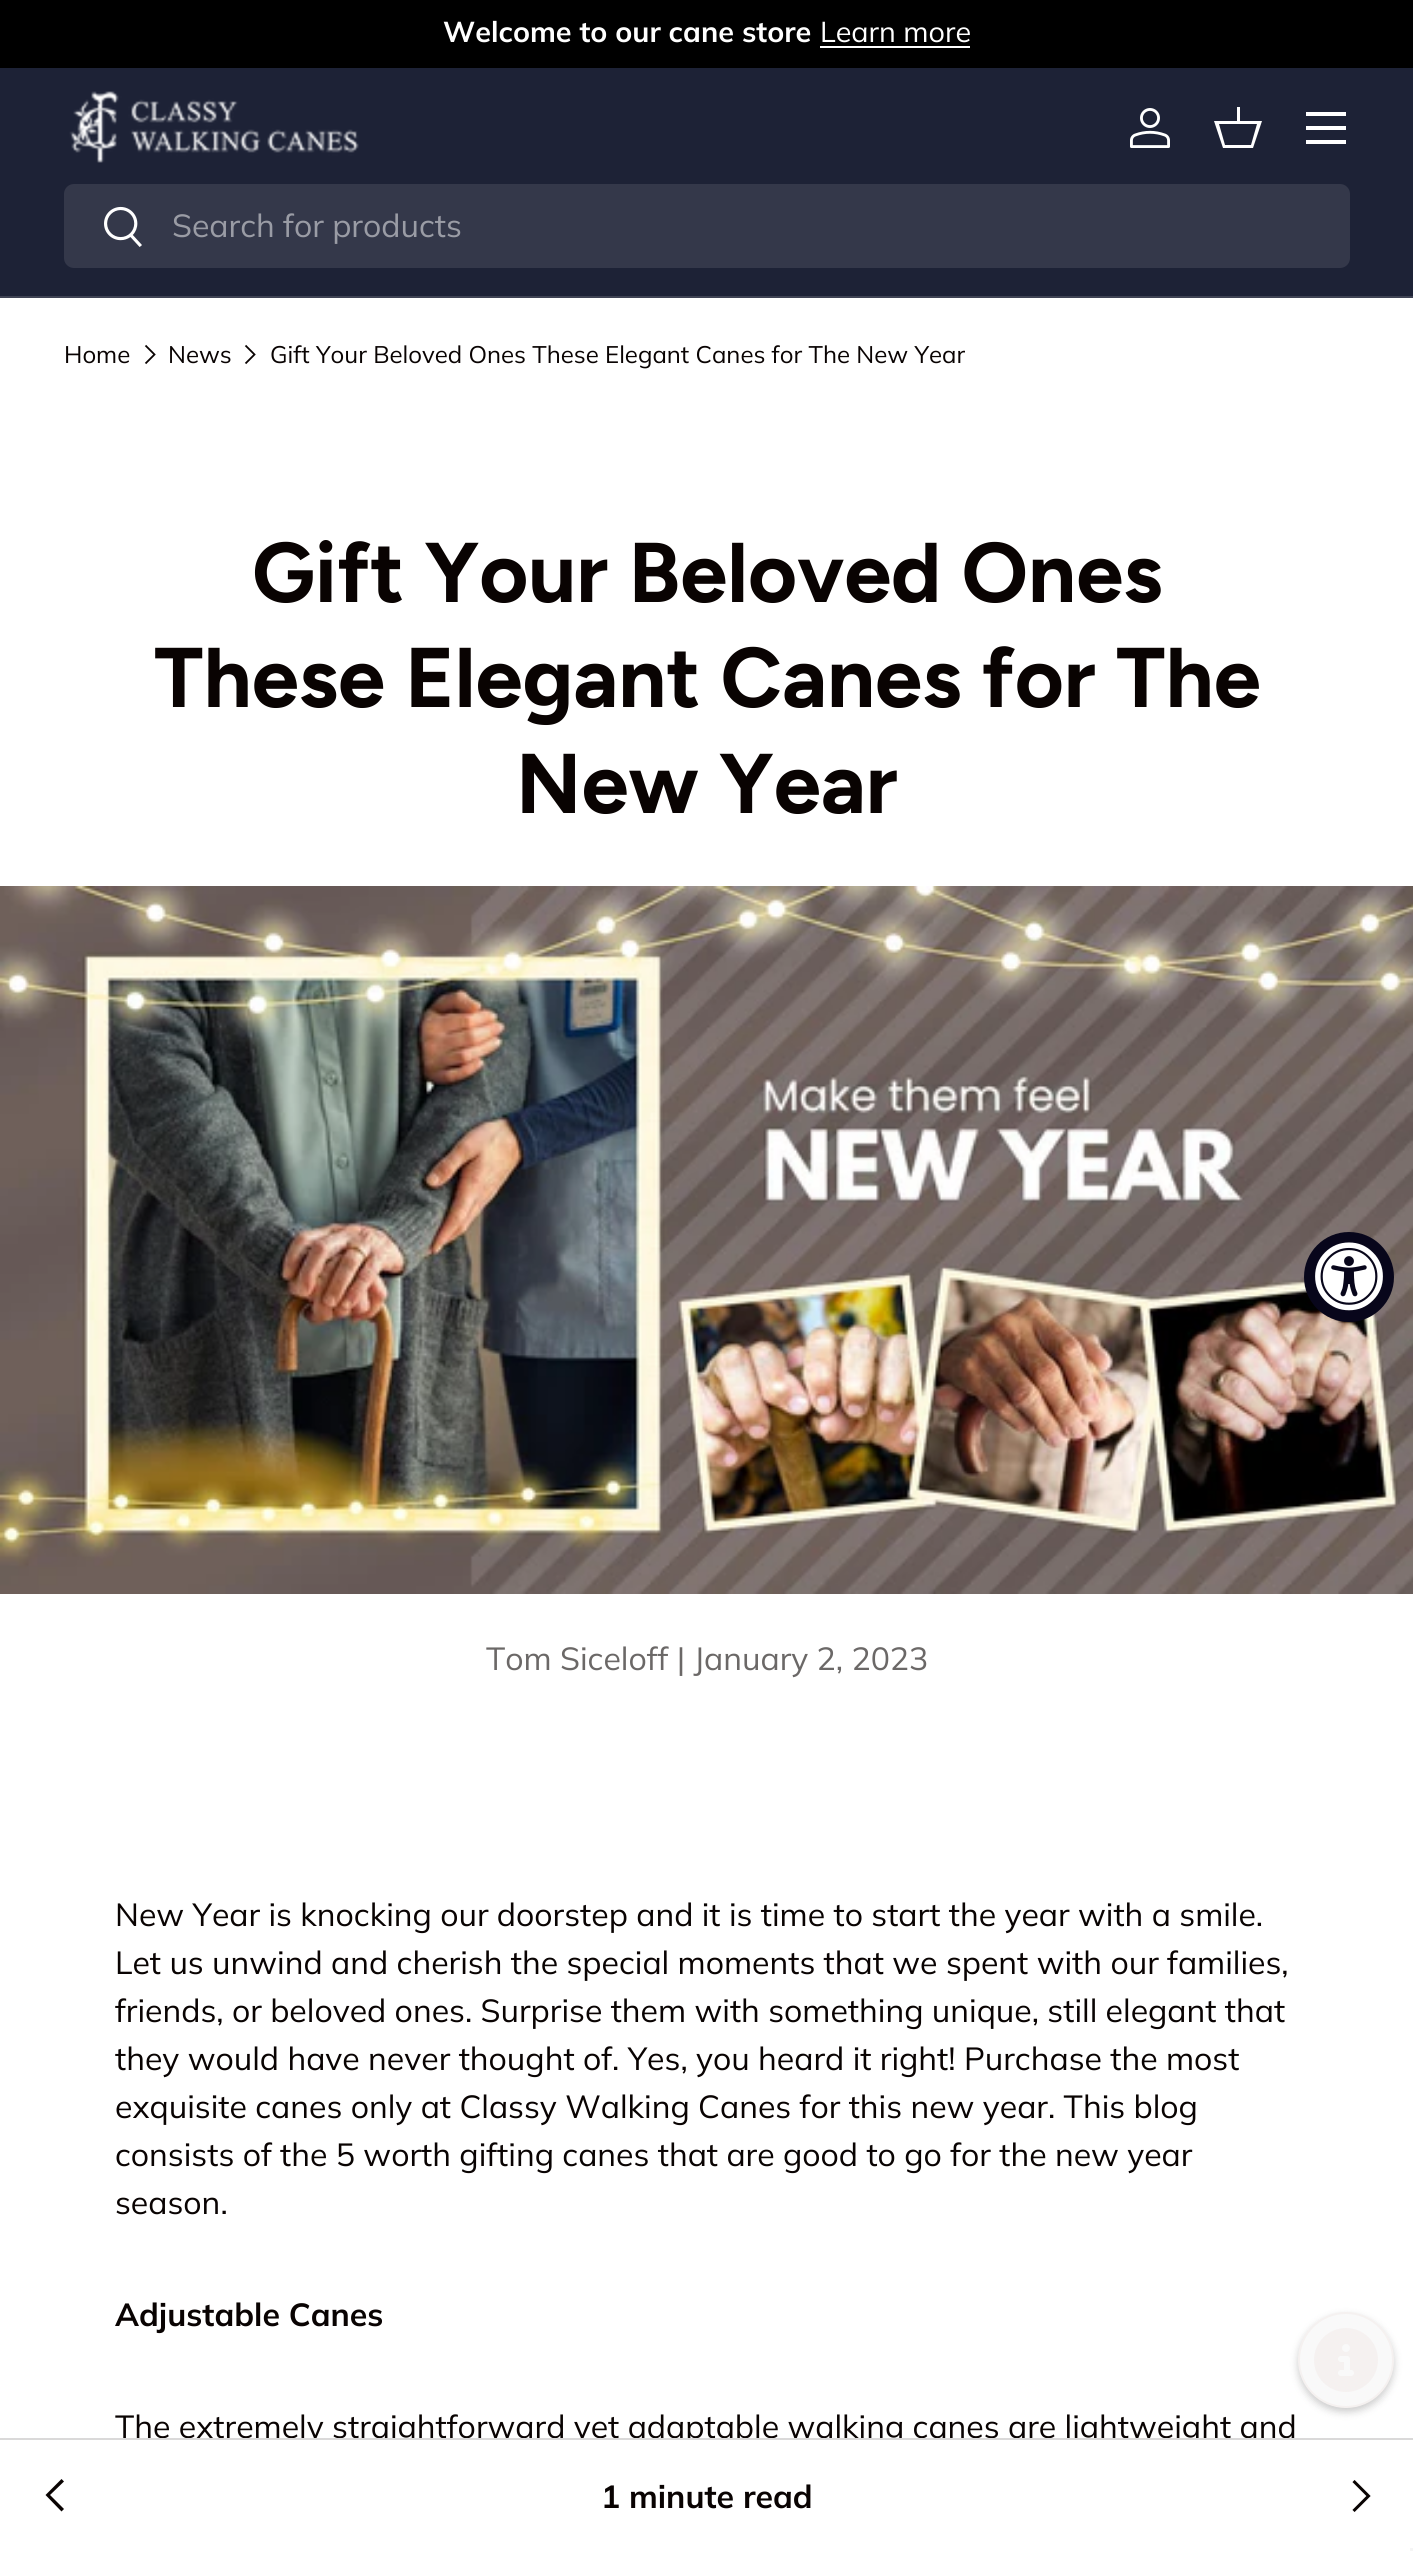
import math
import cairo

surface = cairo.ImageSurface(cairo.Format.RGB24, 1413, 2551)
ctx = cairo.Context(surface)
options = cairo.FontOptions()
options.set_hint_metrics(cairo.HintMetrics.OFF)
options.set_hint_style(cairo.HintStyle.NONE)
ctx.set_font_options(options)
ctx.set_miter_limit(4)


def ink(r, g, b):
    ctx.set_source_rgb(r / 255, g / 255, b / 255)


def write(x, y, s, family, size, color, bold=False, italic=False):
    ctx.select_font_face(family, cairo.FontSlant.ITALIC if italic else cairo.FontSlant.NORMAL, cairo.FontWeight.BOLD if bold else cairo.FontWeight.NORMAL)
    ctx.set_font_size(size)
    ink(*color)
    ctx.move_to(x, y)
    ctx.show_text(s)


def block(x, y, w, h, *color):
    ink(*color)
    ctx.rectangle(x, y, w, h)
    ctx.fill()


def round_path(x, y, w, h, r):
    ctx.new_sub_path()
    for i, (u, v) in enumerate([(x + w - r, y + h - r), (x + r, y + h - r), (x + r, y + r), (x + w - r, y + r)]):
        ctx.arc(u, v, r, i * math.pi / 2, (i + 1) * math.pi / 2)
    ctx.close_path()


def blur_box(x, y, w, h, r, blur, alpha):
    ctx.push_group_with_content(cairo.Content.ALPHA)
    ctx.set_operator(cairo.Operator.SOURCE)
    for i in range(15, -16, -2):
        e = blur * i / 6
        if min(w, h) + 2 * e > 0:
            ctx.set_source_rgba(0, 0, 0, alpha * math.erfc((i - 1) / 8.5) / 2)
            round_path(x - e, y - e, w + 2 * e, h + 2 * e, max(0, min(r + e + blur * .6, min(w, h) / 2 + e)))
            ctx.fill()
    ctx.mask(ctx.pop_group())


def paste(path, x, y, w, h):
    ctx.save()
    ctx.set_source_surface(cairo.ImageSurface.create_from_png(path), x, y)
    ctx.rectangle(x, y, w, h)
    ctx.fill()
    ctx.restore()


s1 = dict(family="Muli", size=28.75, color=(255, 255, 255), bold=True)
s2 = dict(family="Muli", size=28.75, color=(255, 255, 255))
s3 = dict(family="Muli", size=32, color=(154, 156, 165))
s4 = dict(family="Muli", size=24, color=(9, 3, 2))
s5 = dict(family="Figtree", size=84.6, color=(9, 3, 2), bold=True)
s6 = dict(family="Muli", size=32, color=(107, 104, 103))
s7 = dict(family="Muli", size=32, color=(9, 3, 2))
s8 = dict(family="Muli", size=32, color=(9, 3, 2), bold=True)

ink(255, 255, 255)
ctx.paint()
block(0, 0, 1413, 68, 0, 0, 0)
write(443, 42, "Welcome to our cane store", **s1)
write(820, 42, "Learn more", **s2)
block(820, 46, 150, 2, 255, 255, 255)
block(0, 68, 1413, 228, 29, 34, 54)
block(0, 296, 1413, 2, 63, 67, 84)
paste("pic1.png", 69, 91, 290, 72)
paste("pic2.png", 1130, 108, 40, 40)
ink(255, 255, 255)
ctx.new_path()
ctx.move_to(1237, 121)
ctx.line_to(1237, 107)
ctx.line_to(1240, 107)
ctx.line_to(1240, 121)
ctx.line_to(1262, 121)
ctx.line_to(1253, 148)
ctx.line_to(1223, 148)
ctx.line_to(1214, 121)
ctx.close_path()
ctx.move_to(1219, 124)
ctx.line_to(1225, 145)
ctx.line_to(1251, 145)
ctx.line_to(1257, 124)
ctx.close_path()
ctx.fill()
block(1306, 112, 40, 4, 255, 255, 255)
block(1306, 140, 40, 4, 255, 255, 255)
block(1306, 126, 40, 4, 255, 255, 255)
ink(52, 56, 74)
round_path(64, 184, 1286, 84, 10)
ctx.fill()
paste("pic3.png", 104, 206, 38, 41)
write(172, 237, "Search for products", **s3)
write(64, 363, "Home", **s4)
ctx.new_path()
ctx.move_to(145.5, 345.5)
ctx.line_to(154.5, 354.5)
ctx.line_to(145.5, 363.5)
ctx.set_line_width(1.8)
ctx.stroke()
write(168, 363, "News", **s4)
ctx.new_path()
ctx.move_to(245.5, 345.5)
ctx.line_to(254.5, 354.5)
ctx.line_to(245.5, 363.5)
ctx.stroke()
write(270, 363, "Gift Your Beloved Ones These Elegant Canes for The New Year", **s4)
write(252, 602, "Gift Your Beloved Ones", **s5)
write(154, 707, "These Elegant Canes for The", **s5)
write(516, 813, "New Year", **s5)
paste("pic4.png", 0, 886, 1413, 708)
write(486, 1670, "Tom Siceloff | January 2, 2023", **s6)
write(115, 1926, "New Year is knocking our doorstep and it is time to start the year with a smile.", **s7)
write(115, 1974, "Let us unwind and cherish the special moments that we spent with our families,", **s7)
write(115, 2022, "friends, or beloved ones. Surprise them with something unique, still elegant that", **s7)
write(115, 2070, "they would have never thought of. Yes, you heard it right! Purchase the most", **s7)
write(115, 2118, "exquisite canes only at Classy Walking Canes for this new year. This blog", **s7)
write(115, 2166, "consists of the 5 worth gifting canes that are good to go for the new year", **s7)
write(115, 2214, "season.", **s7)
write(115, 2326, "Adjustable Canes", **s8)
write(115, 2438, "The extremely straightforward yet adaptable walking canes are lightweight and", **s7)
block(308, 2440, 891, 6, 255, 255, 255)
block(0, 2438, 1413, 2, 218, 217, 217)
ink(9, 3, 2)
ctx.new_path()
ctx.move_to(45.5, 2495)
ctx.line_to(61.5, 2479)
ctx.line_to(64, 2481.5)
ctx.line_to(50, 2495)
ctx.line_to(64, 2509)
ctx.line_to(61.5, 2511.5)
ctx.close_path()
ctx.fill()
write(601, 2508, "1 minute read", **s8)
ctx.new_path()
ctx.move_to(1353.5, 2481)
ctx.line_to(1368.5, 2496)
ctx.line_to(1353.5, 2511)
ctx.set_line_width(3)
ctx.stroke()
ink(8, 6, 27)
ctx.arc(1349, 1277, 45, 0, 2 * math.pi)
ctx.fill()
paste("pic5.png", 1315, 1242, 68, 69)
ink(0, 0, 0)
blur_box(1298, 2316, 96, 96, 48, 4, 0.2)
ink(249, 249, 249)
ctx.arc(1346, 2360, 47, 0, 2 * math.pi)
ctx.fill_preserve()
ink(245, 241, 240)
ctx.set_line_width(2)
ctx.stroke()
paste("pic6.png", 1314, 2328, 64, 64)
block(1410, 2548, 3, 3, 245, 245, 245)
surface.write_to_png("screenshot.png")
